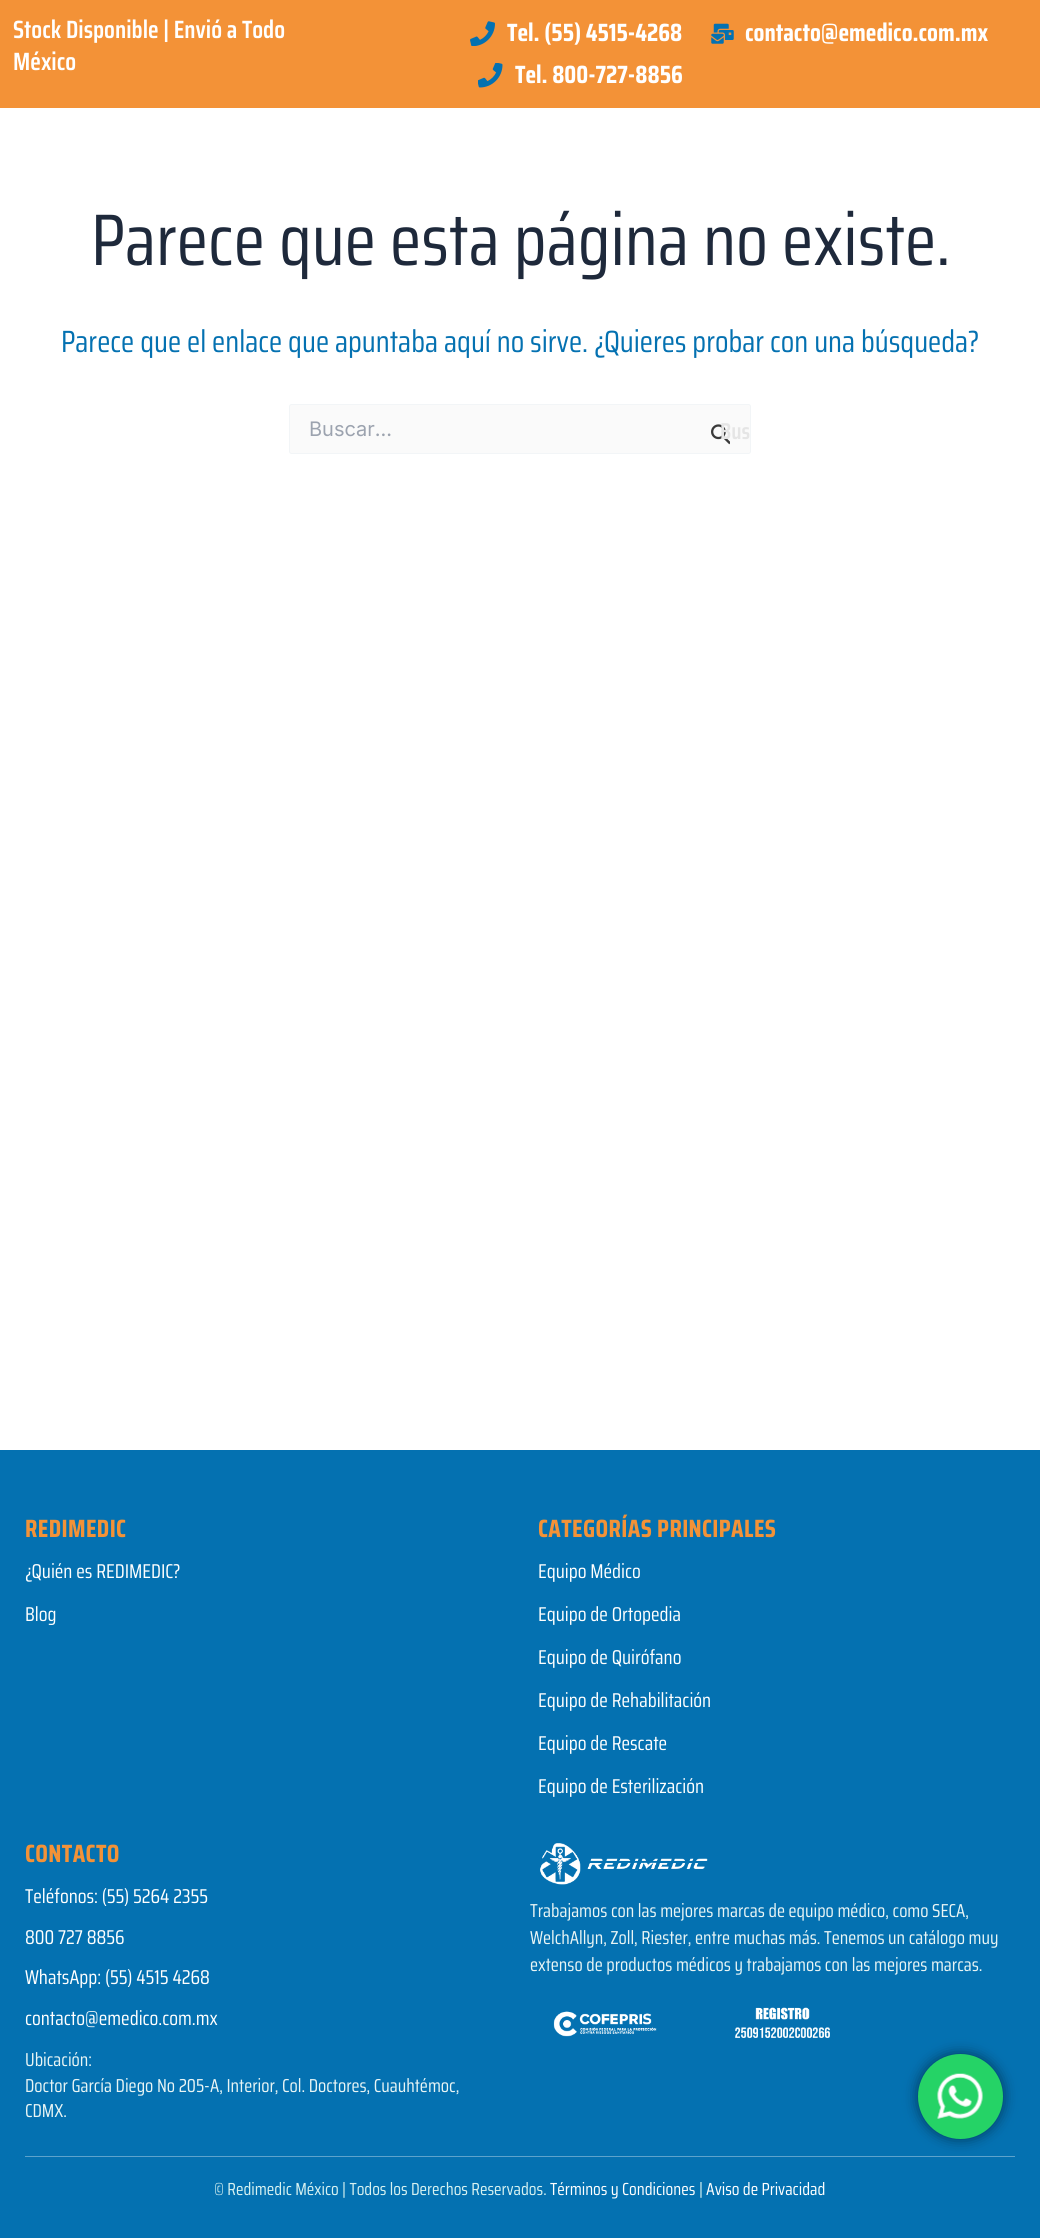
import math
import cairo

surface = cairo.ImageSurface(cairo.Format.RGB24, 1040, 2238)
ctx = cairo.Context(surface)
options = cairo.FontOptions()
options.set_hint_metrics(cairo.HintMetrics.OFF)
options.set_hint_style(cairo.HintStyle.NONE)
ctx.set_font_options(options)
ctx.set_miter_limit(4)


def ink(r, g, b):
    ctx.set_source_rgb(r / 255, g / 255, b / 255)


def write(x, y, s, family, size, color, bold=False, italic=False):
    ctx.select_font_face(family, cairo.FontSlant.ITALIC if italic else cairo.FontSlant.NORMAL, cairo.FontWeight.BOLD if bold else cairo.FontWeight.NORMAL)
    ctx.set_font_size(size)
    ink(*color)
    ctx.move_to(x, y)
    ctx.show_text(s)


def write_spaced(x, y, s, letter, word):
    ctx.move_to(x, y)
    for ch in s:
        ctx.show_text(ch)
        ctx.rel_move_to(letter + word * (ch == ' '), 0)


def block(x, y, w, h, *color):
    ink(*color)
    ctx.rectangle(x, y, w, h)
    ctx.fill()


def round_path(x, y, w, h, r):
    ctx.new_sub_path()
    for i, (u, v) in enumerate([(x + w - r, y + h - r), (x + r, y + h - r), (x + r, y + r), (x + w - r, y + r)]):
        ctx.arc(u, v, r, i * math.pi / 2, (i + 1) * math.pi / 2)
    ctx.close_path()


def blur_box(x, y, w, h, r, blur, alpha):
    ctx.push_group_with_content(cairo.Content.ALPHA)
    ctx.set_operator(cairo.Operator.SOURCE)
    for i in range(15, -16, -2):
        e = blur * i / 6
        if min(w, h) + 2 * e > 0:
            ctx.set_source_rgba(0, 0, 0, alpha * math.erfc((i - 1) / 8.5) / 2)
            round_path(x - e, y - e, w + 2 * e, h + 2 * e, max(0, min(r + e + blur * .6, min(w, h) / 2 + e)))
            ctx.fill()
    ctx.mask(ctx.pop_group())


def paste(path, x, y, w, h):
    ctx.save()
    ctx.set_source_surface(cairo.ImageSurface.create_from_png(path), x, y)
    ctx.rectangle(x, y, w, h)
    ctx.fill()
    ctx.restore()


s1 = dict(family="Saira Condensed SemiBold", size=25, color=(255, 255, 255))
s2 = dict(family="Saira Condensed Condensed", size=25, color=(255, 255, 255), bold=True)
s3 = dict(family="Saira Condensed", size=73, color=(30, 41, 59))
s4 = dict(family="Saira Condensed", size=30.75, color=(4, 113, 177))
s5 = dict(family="Inter", size=20, color=(156, 163, 175))
s6 = dict(family="Saira Condensed SemiBold", size=23, color=(229, 229, 229))
s7 = dict(family="Saira Condensed", size=20, color=(255, 255, 255))
s8 = dict(family="Saira Condensed", size=18.75, color=(233, 245, 245))
s9 = dict(family="Saira Condensed", size=17.5, color=(215, 242, 241))
s10 = dict(family="Saira Condensed", size=17.5, color=(255, 255, 255))

ink(255, 255, 255)
ctx.paint()
block(0, 0, 1040, 108, 243, 146, 55)
write(13, 38, "Stock Disponible | Envió a Todo", **s1)
write(13, 70, "México", **s1)
paste("pic1.png", 470, 21, 25, 25)
write(507, 41, "Tel. (55) 4515-4268", **s2)
paste("pic2.png", 478, 63, 25, 25)
write(515, 83, "Tel. 800-727-8856", **s2)
paste("pic3.png", 711, 23, 23, 21)
write(745, 41, "contacto@emedico.com.mx", **s2)
write(91, 265, "Parece que esta página no existe.", **s3)
write(61, 352, "Parece que el enlace que apuntaba aquí no sirve. ¿Quieres probar con una búsqueda?", **s4)
ink(250, 250, 250)
round_path(289.5, 404.5, 461, 49, 2)
ctx.fill_preserve()
ink(242, 245, 247)
ctx.set_line_width(1)
ctx.stroke()
write(309, 436, "Buscar...", **s5)
paste("pic4.png", 711, 424, 19, 21)
write(720, 439, "Bus", **s6)
block(0, 1450, 1040, 788, 4, 113, 177)
ctx.select_font_face("Saira Condensed Condensed", cairo.FontSlant.NORMAL, cairo.FontWeight.BOLD)
ctx.set_font_size(25)
ink(243, 146, 55)
write_spaced(25, 1537, "REDIMEDIC", 0.4, 0)
write(25, 1578, "¿Quién es REDIMEDIC?", **s7)
write(25, 1621, "Blog", **s7)
ctx.select_font_face("Saira Condensed Condensed", cairo.FontSlant.NORMAL, cairo.FontWeight.BOLD)
ctx.set_font_size(25)
ink(243, 146, 55)
write_spaced(538, 1537, "CATEGORÍAS PRINCIPALES", 0.4, 0)
write(538, 1578, "Equipo Médico", **s7)
write(538, 1621, "Equipo de Ortopedia", **s7)
write(538, 1664, "Equipo de Quirófano", **s7)
write(538, 1707, "Equipo de Rehabilitación", **s7)
write(538, 1750, "Equipo de Rescate", **s7)
write(538, 1793, "Equipo de Esterilización", **s7)
ctx.select_font_face("Saira Condensed Condensed", cairo.FontSlant.NORMAL, cairo.FontWeight.BOLD)
ctx.set_font_size(25)
ink(243, 146, 55)
write_spaced(25, 1862, "CONTACTO", 0.4, 0)
write(25, 1903, "Teléfonos: (55) 5264 2355", **s7)
write(25, 1944, "800 727 8856", **s7)
write(25, 1984, "WhatsApp: (55) 4515 4268", **s7)
write(25, 2025, "contacto@emedico.com.mx", **s7)
write(25, 2066, "Ubicación:", **s8)
write(25, 2092, "Doctor García Diego No 205-A, Interior, Col. Doctores, Cuauhtémoc,", **s8)
write(25, 2117, "CDMX.", **s8)
paste("pic5.png", 540, 1843, 168, 42)
write(530, 1917, "Trabajamos con las mejores marcas de equipo médico, como SECA,", **s8)
write(530, 1944, "WelchAllyn, Zoll, Riester, entre muchas más. Tenemos un catálogo muy", **s8)
write(530, 1971, "extenso de productos médicos y trabajamos con las mejores marcas.", **s8)
paste("pic6.png", 553, 2011, 104, 26)
paste("pic7.png", 735, 2007, 95, 31)
block(25, 2156, 990, 1, 92, 163, 204)
write(214, 2195, "© Redimedic México | Todos los Derechos Reservados.", **s9)
write(550, 2195, "Términos y Condiciones", **s10)
write(699, 2195, "|", **s9)
write(706, 2195, "Aviso de Privacidad", **s10)
ink(0, 0, 0)
blur_box(918, 2054, 85, 85, 42.5, 7, 0.5)
ink(37, 211, 102)
ctx.arc(960.5, 2096.5, 42.5, 0, 2 * math.pi)
ctx.fill()
paste("pic8.png", 937, 2073, 46, 46)
surface.write_to_png("screenshot.png")
